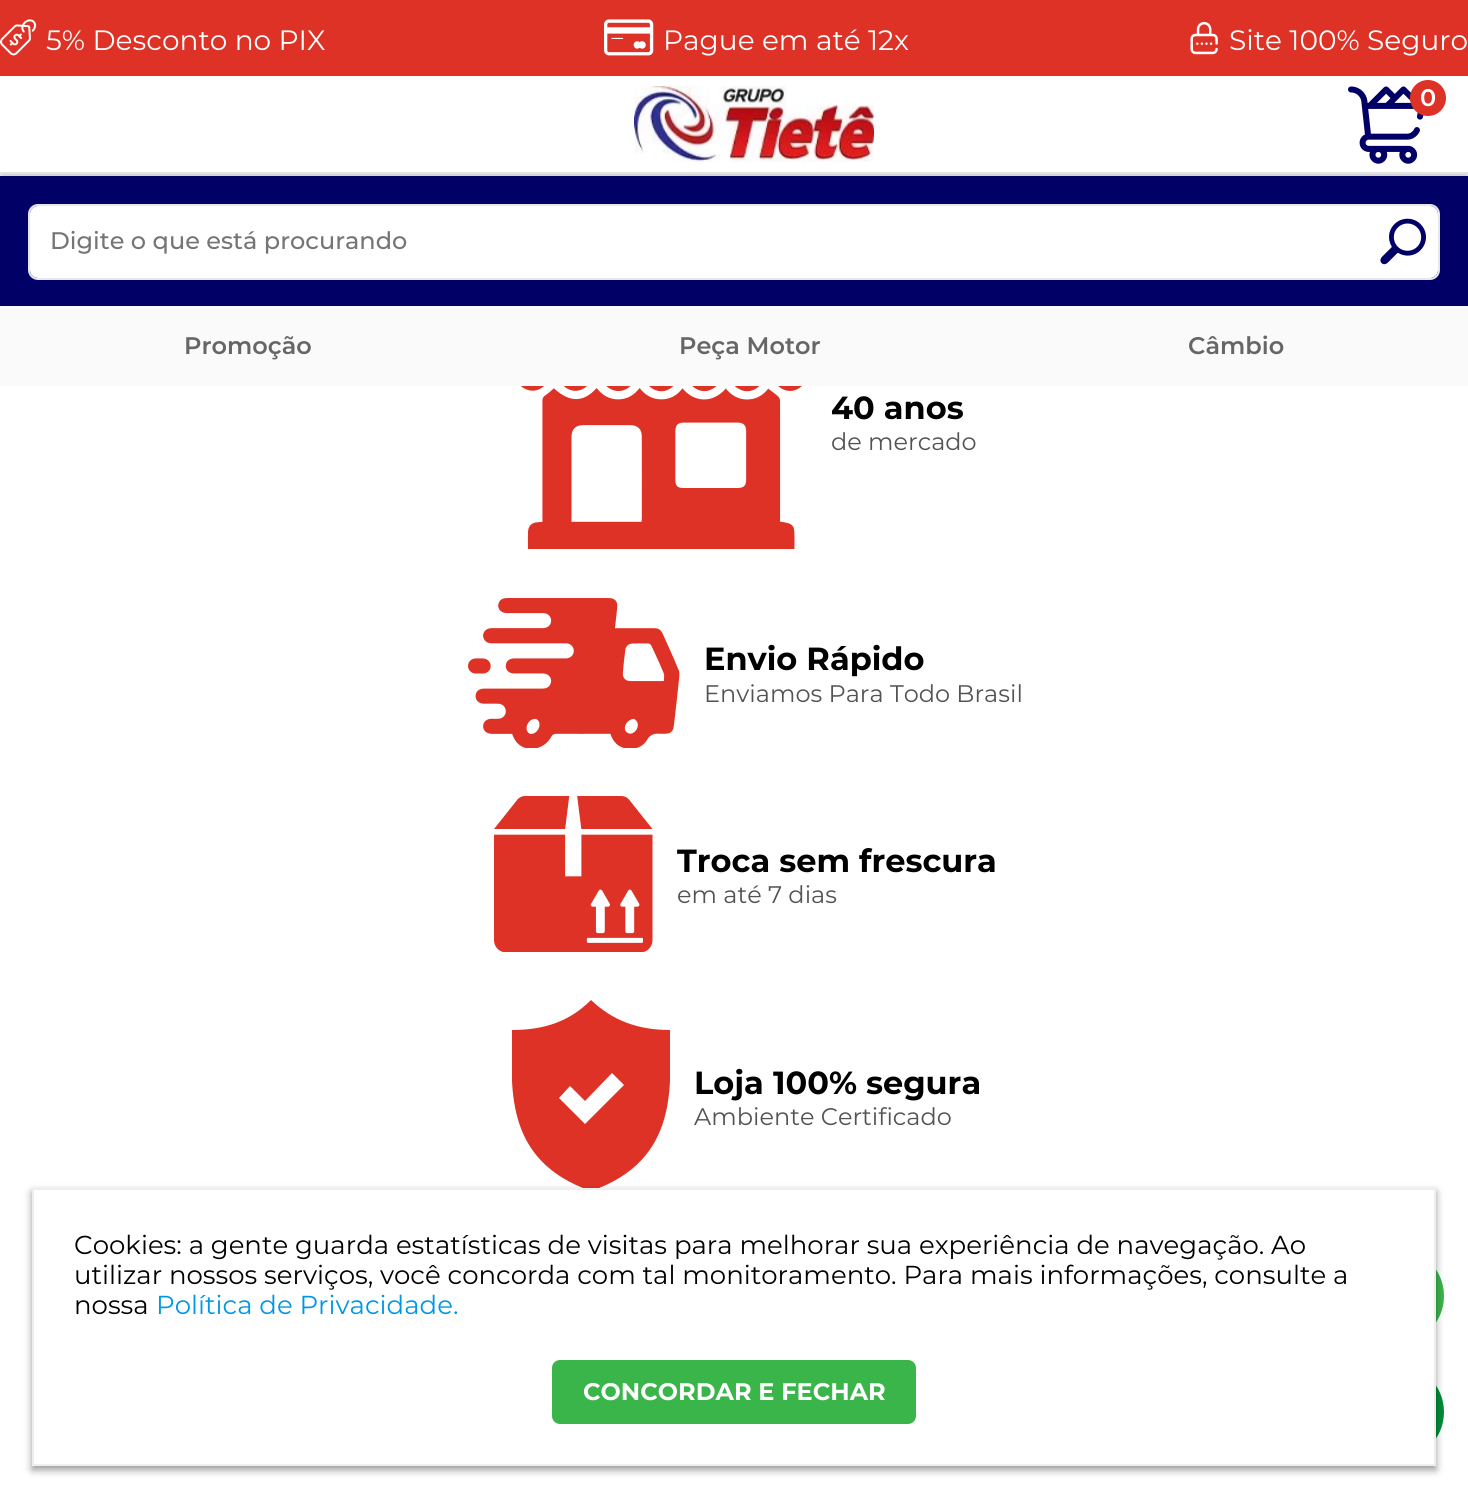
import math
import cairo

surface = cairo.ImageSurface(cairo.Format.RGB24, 1468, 1498)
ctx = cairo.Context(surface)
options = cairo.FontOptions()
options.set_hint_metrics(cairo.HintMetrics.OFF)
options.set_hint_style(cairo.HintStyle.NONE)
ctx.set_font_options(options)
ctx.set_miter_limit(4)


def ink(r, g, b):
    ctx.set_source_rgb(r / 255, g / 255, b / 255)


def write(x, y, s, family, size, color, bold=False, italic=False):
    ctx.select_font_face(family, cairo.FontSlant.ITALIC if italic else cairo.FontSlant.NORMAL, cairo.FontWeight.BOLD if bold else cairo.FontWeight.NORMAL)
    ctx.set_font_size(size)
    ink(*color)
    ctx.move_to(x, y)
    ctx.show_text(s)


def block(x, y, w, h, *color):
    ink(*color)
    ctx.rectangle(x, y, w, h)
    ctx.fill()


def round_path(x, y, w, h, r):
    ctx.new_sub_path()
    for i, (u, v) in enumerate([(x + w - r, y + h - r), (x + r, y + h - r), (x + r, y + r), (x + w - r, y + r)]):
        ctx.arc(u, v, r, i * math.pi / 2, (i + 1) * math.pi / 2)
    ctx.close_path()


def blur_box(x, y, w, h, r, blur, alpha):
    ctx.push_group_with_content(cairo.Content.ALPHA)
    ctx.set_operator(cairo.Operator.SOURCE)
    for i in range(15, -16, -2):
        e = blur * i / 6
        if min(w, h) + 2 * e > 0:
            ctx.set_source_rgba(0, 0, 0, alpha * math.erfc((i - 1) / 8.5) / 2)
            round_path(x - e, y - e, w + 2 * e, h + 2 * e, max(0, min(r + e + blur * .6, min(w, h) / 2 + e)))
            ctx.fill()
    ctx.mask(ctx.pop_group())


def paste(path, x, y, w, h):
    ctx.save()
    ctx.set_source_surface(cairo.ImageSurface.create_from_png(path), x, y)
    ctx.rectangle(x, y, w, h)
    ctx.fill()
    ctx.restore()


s1 = dict(family="Montserrat", size=28, color=(255, 255, 255))
s2 = dict(family="Montserrat SemiBold", size=24, color=(255, 255, 255))
s3 = dict(family="Montserrat Medium", size=24, color=(117, 117, 117))
s4 = dict(family="Montserrat SemiBold", size=24, color=(102, 102, 102))
s5 = dict(family="Montserrat", size=32, color=(0, 0, 0), bold=True)
s6 = dict(family="Montserrat", size=24, color=(83, 83, 83))
s7 = dict(family="Montserrat", size=26, color=(0, 0, 0))
s8 = dict(family="Montserrat", size=26, color=(0, 151, 229))
s9 = dict(family="Montserrat", size=24, color=(255, 255, 255), bold=True)

ink(255, 255, 255)
ctx.paint()
ctx.save()
ctx.rectangle(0, 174, 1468, 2)
ctx.clip()
ink(0, 0, 0)
blur_box(0, 4, 1468, 174, 0, 3, 0.2)
ctx.restore()
block(0, 0, 1468, 76, 222, 50, 38)
paste("pic1.png", 0, 19, 36, 37)
write(46, 50, "5% Desconto no PIX", **s1)
paste("pic2.png", 604, 19, 50, 37)
write(663, 50, "Pague em até 12x", **s1)
paste("pic3.png", 1190, 21, 28, 34)
write(1229, 50, "Site 100% Seguro", **s1)
block(0, 172, 1468, 2, 226, 226, 226)
paste("pic4.png", 634, 86, 240, 76)
paste("pic5.png", 1348, 86, 76, 78)
ink(222, 50, 38)
ctx.arc(1428, 98, 18, 0, 2 * math.pi)
ctx.fill()
write(1420, 106, "0", **s2)
block(0, 176, 1468, 130, 1, 0, 102)
round_path(29, 205, 1410, 74, 9)
ink(231, 231, 231)
ctx.stroke()
ink(255, 255, 255)
round_path(30, 206, 1408, 72, 8)
ctx.fill()
write(50, 249, "Digite o que está procurando", **s3)
paste("pic6.png", 1380, 218, 46, 47)
block(0, 306, 1468, 80, 250, 250, 250)
write(184, 354, "Promoção", **s4)
write(679, 354, "Peça Motor", **s4)
write(1188, 354, "Câmbio", **s4)
paste("pic7.png", 521, 386, 281, 163)
write(831, 419, "40 anos", **s5)
write(831, 450, "de mercado", **s6)
paste("pic8.png", 468, 598, 212, 150)
write(704, 670, "Envio Rápido", **s5)
write(704, 702, "Enviamos Para Todo Brasil", **s6)
paste("pic9.png", 494, 796, 159, 156)
write(677, 872, "Troca sem frescura", **s5)
write(677, 903, "em até 7 dias", **s6)
ctx.save()
ctx.rectangle(512, 1000, 158, 192)
ctx.clip()
ink(222, 50, 38)
ctx.new_path()
ctx.move_to(670, 1030)
ctx.curve_to(637, 1030, 612, 1020, 591, 1000)
ctx.curve_to(570, 1021, 545, 1030, 512, 1030)
ctx.curve_to(512, 1083, 501, 1160, 591, 1191)
ctx.curve_to(681, 1160, 670, 1083, 670, 1030)
ctx.close_path()
ctx.move_to(585, 1124)
ctx.line_to(559, 1098)
ctx.line_to(570, 1086)
ctx.line_to(585, 1101)
ctx.line_to(612, 1073)
ctx.line_to(624, 1085)
ctx.close_path()
ctx.fill()
ctx.restore()
write(694, 1094, "Loja 100% segura", **s5)
write(694, 1125, "Ambiente Certificado", **s6)
ink(57, 181, 74)
ctx.new_path()
ctx.arc(1396, 1296, 48, 0, 2 * math.pi)
ctx.fill()
ink(0, 142, 55)
ctx.arc(1396, 1412, 48, 0, 2 * math.pi)
ctx.fill()
ink(0, 0, 0)
blur_box(32, 1192, 1404, 278, 0, 4, 0.4)
ink(255, 255, 255)
ctx.rectangle(33, 1189, 1402, 276)
ctx.fill_preserve()
ink(238, 238, 238)
ctx.stroke()
write(74, 1254, "Cookies: a gente guarda estatísticas de visitas para melhorar sua experiência de navegação. Ao", **s7)
write(74, 1284, "utilizar nossos serviços, você concorda com tal monitoramento. Para mais informações, consulte a", **s7)
write(74, 1314, "nossa", **s7)
write(156, 1314, "Política de Privacidade.", **s8)
ink(57, 181, 74)
round_path(552, 1360, 364, 64, 8)
ctx.fill()
write(583, 1400, "CONCORDAR E FECHAR", **s9)
surface.write_to_png("screenshot.png")
